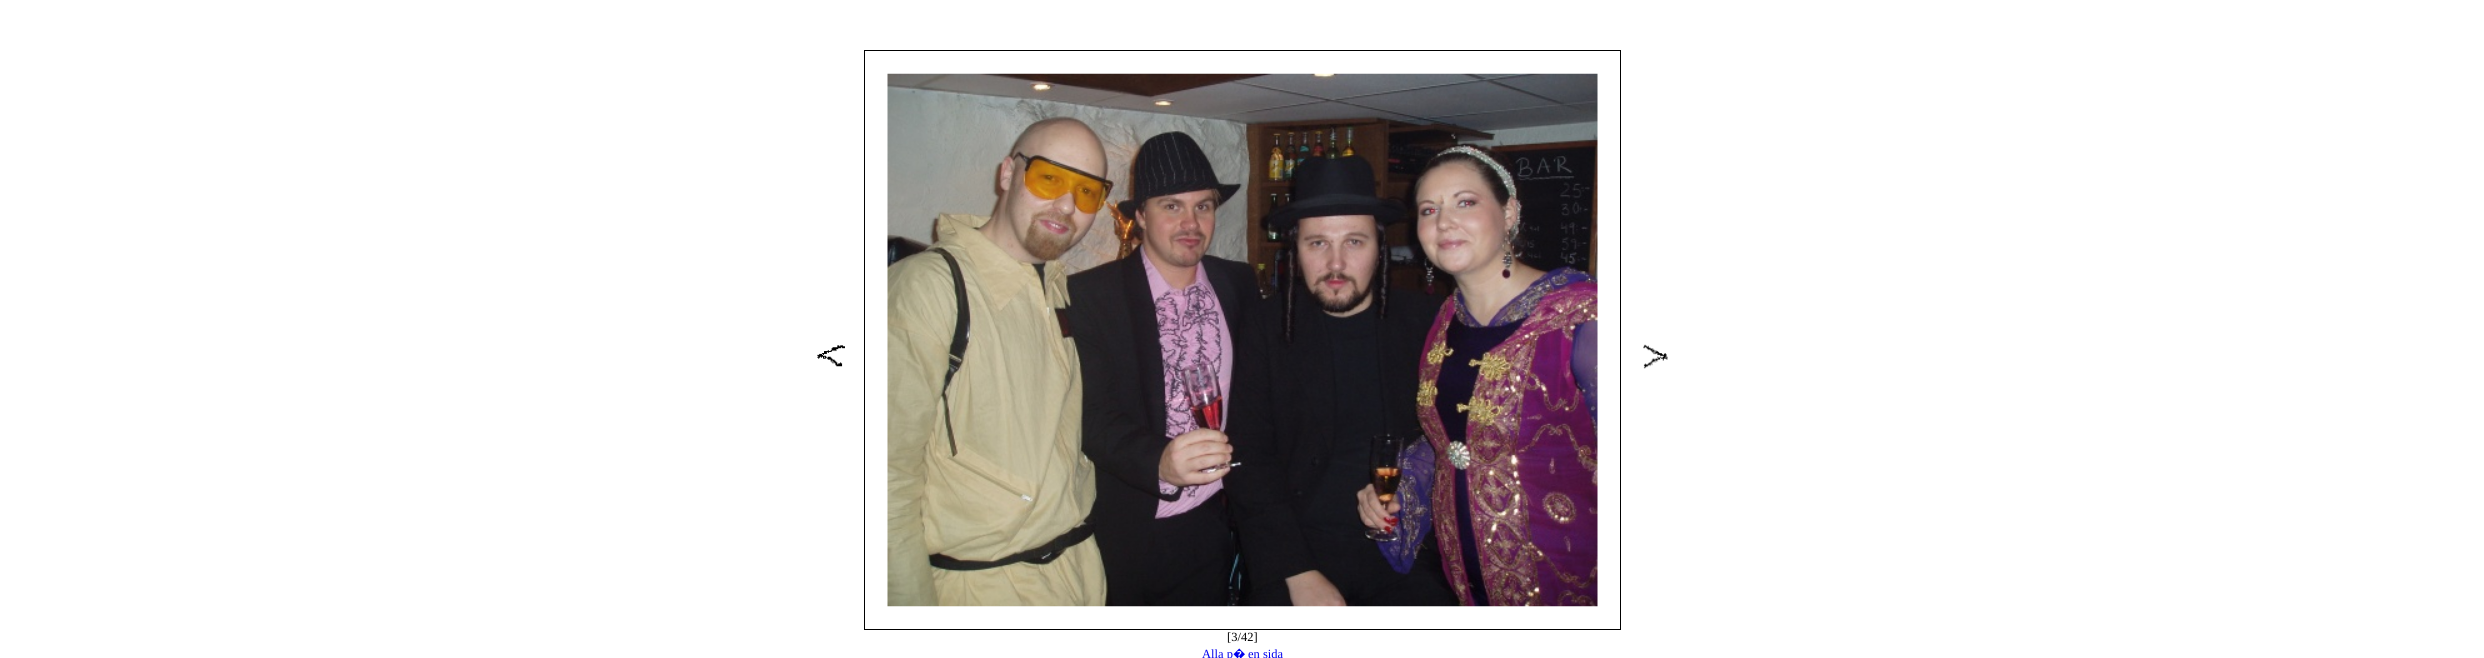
import math
import cairo

surface = cairo.ImageSurface(cairo.Format.RGB24, 2484, 658)
ctx = cairo.Context(surface)
options = cairo.FontOptions()
options.set_hint_metrics(cairo.HintMetrics.OFF)
options.set_hint_style(cairo.HintStyle.NONE)
ctx.set_font_options(options)
ctx.set_miter_limit(4)


def ink(r, g, b):
    ctx.set_source_rgb(r / 255, g / 255, b / 255)


def write(x, y, s, family, size, color, bold=False, italic=False):
    ctx.select_font_face(family, cairo.FontSlant.ITALIC if italic else cairo.FontSlant.NORMAL, cairo.FontWeight.BOLD if bold else cairo.FontWeight.NORMAL)
    ctx.set_font_size(size)
    ink(*color)
    ctx.move_to(x, y)
    ctx.show_text(s)


def block(x, y, w, h, *color):
    ink(*color)
    ctx.rectangle(x, y, w, h)
    ctx.fill()


def paste(path, x, y, w, h):
    ctx.save()
    ctx.set_source_surface(cairo.ImageSurface.create_from_png(path), x, y)
    ctx.rectangle(x, y, w, h)
    ctx.fill()
    ctx.restore()


s1 = dict(family="Liberation Serif", size=12.5, color=(0, 0, 0))
s2 = dict(family="Liberation Serif", size=12.5, color=(0, 0, 238))
s3 = dict(family="Noto Sans", size=12.5, color=(0, 0, 238))

ink(255, 255, 255)
ctx.paint()
paste("pic1.png", 817, 345, 28, 22)
paste("pic2.png", 1643, 344, 25, 25)
block(864, 50, 757, 580, 0, 0, 0)
block(865, 51, 755, 578, 255, 255, 255)
paste("pic3.png", 887, 73, 711, 534)
write(1227, 641, "[3/42]", **s1)
write(1202, 658, "Alla p", **s2)
write(1233, 658, "�", **s3)
write(1248, 658, "en sida", **s2)
surface.write_to_png("screenshot.png")
